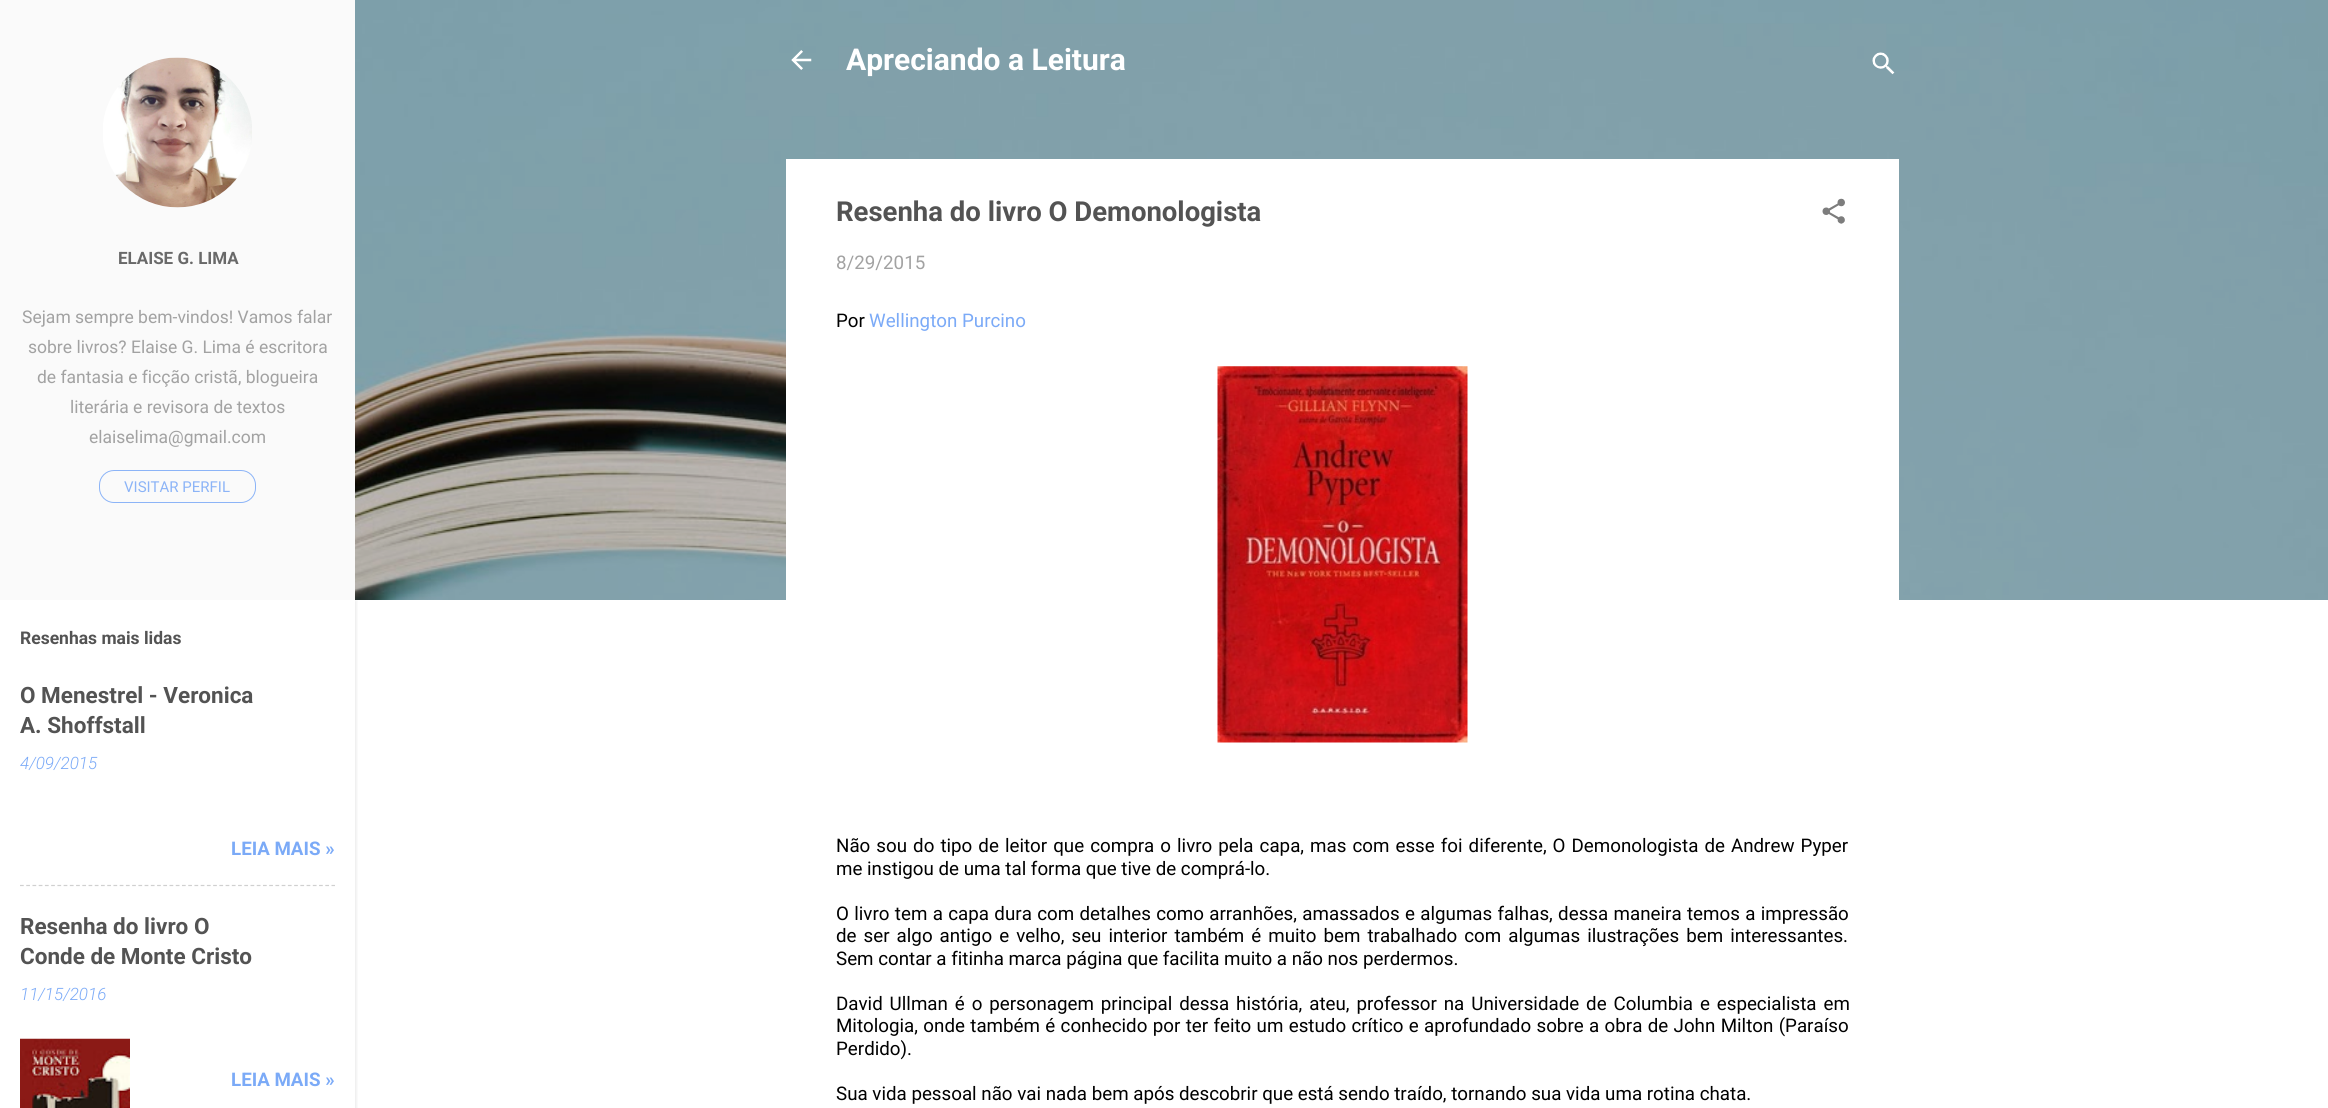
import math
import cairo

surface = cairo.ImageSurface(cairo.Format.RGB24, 2328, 1108)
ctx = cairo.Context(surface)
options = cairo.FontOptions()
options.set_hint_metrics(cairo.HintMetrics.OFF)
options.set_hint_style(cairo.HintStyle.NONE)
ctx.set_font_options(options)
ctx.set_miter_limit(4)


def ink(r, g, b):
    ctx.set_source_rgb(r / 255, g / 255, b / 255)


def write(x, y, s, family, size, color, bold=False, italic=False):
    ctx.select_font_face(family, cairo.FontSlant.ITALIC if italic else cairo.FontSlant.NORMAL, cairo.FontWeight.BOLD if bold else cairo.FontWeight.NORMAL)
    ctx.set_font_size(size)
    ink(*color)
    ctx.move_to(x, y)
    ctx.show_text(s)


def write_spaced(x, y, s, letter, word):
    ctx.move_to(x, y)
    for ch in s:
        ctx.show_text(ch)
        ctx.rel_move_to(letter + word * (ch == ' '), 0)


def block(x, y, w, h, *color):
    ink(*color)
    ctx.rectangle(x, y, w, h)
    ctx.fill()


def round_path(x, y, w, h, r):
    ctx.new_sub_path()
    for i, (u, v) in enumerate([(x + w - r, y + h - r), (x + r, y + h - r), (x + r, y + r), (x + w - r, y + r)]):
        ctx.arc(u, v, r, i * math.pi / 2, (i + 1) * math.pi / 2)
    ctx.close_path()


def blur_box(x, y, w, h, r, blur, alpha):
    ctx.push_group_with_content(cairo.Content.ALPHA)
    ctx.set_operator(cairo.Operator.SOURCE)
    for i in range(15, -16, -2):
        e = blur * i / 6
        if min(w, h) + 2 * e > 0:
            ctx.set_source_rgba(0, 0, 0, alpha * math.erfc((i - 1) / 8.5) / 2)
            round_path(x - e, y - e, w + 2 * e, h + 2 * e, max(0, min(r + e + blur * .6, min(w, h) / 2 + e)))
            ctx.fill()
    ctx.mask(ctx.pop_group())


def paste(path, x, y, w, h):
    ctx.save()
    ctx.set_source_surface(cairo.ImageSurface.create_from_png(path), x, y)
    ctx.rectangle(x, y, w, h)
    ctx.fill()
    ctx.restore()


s1 = dict(family="Roboto", size=17, color=(105, 105, 105), bold=True)
s2 = dict(family="Roboto", size=17.5, color=(162, 162, 162))
s3 = dict(family="Roboto", size=15, color=(140, 180, 247))
s4 = dict(family="Roboto", size=17.5, color=(83, 83, 83), bold=True)
s5 = dict(family="Roboto", size=22.5, color=(83, 83, 83), bold=True)
s6 = dict(family="Roboto Light", size=17, color=(123, 170, 247), italic=True)
s7 = dict(family="Roboto", size=18.75, color=(123, 170, 247), bold=True)
s8 = dict(family="Roboto", size=30, color=(255, 255, 255), bold=True)
s9 = dict(family="Roboto", size=27.5, color=(83, 83, 83), bold=True)
s10 = dict(family="Roboto", size=18.75, color=(162, 162, 162))
s11 = dict(family="Roboto", size=18.75, color=(0, 0, 0))
s12 = dict(family="Roboto", size=18.75, color=(123, 170, 247))

ink(255, 255, 255)
ctx.paint()
paste("pic3.png", 355, 0, 1973, 600)
ctx.save()
ctx.rectangle(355, 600, 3, 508)
ctx.clip()
ink(0, 0, 0)
blur_box(1, 601, 355, 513, 0, 2, 0.1)
ctx.restore()
block(0, 0, 355, 600, 250, 250, 250)
paste("pic1.png", 103, 57, 149, 151)
write(118, 264, "ELAISE G. LIMA", **s1)
write(22, 323, "Sejam sempre bem-vindos! Vamos falar", **s2)
write(28, 353, "sobre livros? Elaise G. Lima é escritora", **s2)
write(37, 383, "de fantasia e ficção cristã, blogueira", **s2)
write(70, 413, "literária e revisora de textos", **s2)
write(89, 443, "elaiselima@gmail.com", **s2)
round_path(99.5, 470.5, 156, 32, 14.5)
ink(140, 180, 247)
ctx.set_line_width(1)
ctx.stroke()
write(124, 492, "VISITAR PERFIL", **s3)
write(20, 644, "Resenhas mais lidas", **s4)
write(20, 703, "O Menestrel - Veronica", **s5)
write(20, 733, "A. Shoffstall", **s5)
write(20, 769, "4/09/2015", **s6)
write(231, 855, "LEIA MAIS »", **s7)
ctx.new_path()
ctx.move_to(20, 885.5)
ctx.line_to(335, 885.5)
ink(208, 208, 208)
ctx.set_line_width(1.2)
ctx.set_dash([3.75, 2.48])
ctx.stroke()
write(20, 934, "Resenha do livro O", **s5)
write(20, 964, "Conde de Monte Cristo", **s5)
write(20, 1000, "11/15/2016", **s6)
paste("pic2.png", 20, 1038, 110, 70)
write(231, 1086, "LEIA MAIS »", **s7)
paste("pic4.png", 791, 50, 21, 20)
write(846, 70, "Apreciando a Leitura", **s8)
paste("pic5.png", 1872, 52, 23, 23)
block(786, 159, 1113, 441, 255, 255, 255)
write(836, 221, "Resenha do livro O Demonologista", **s9)
paste("pic6.png", 1822, 198, 23, 26)
write(836, 269, "8/29/2015", **s10)
write(836, 327, "Por", **s11)
write(869, 327, "Wellington Purcino", **s12)
paste("pic7.png", 1217, 366, 251, 377)
ink(0, 0, 0)
write_spaced(836, 852, "Não sou do tipo de leitor que compra o livro pela capa, mas com esse foi diferente, O Demonologista de Andrew Pyper", 0, 1.4)
write(836, 875, "me instigou de uma tal forma que tive de comprá-lo.", **s11)
write_spaced(836, 920, "O livro tem a capa dura com detalhes como arranhões, amassados e algumas falhas, dessa maneira temos a impressão", 0, 0.7)
write_spaced(836, 942, "de ser algo antigo e velho, seu interior também é muito bem trabalhado com algumas ilustrações bem interessantes.", 0, 2.4)
write(836, 965, "Sem contar a fitinha marca página que facilita muito a não nos perdermos.", **s11)
write_spaced(836, 1010, "David Ullman é o personagem principal dessa história, ateu, professor na Universidade de Columbia e especialista em", 0, 2.25)
write_spaced(836, 1032, "Mitologia, onde também é conhecido por ter feito um estudo crítico e aprofundado sobre a obra de John Milton (Paraíso", 0, 0.7)
write(836, 1055, "Perdido).", **s11)
write(836, 1100, "Sua vida pessoal não vai nada bem após descobrir que está sendo traído, tornando sua vida uma rotina chata.", **s11)
surface.write_to_png("screenshot.png")
